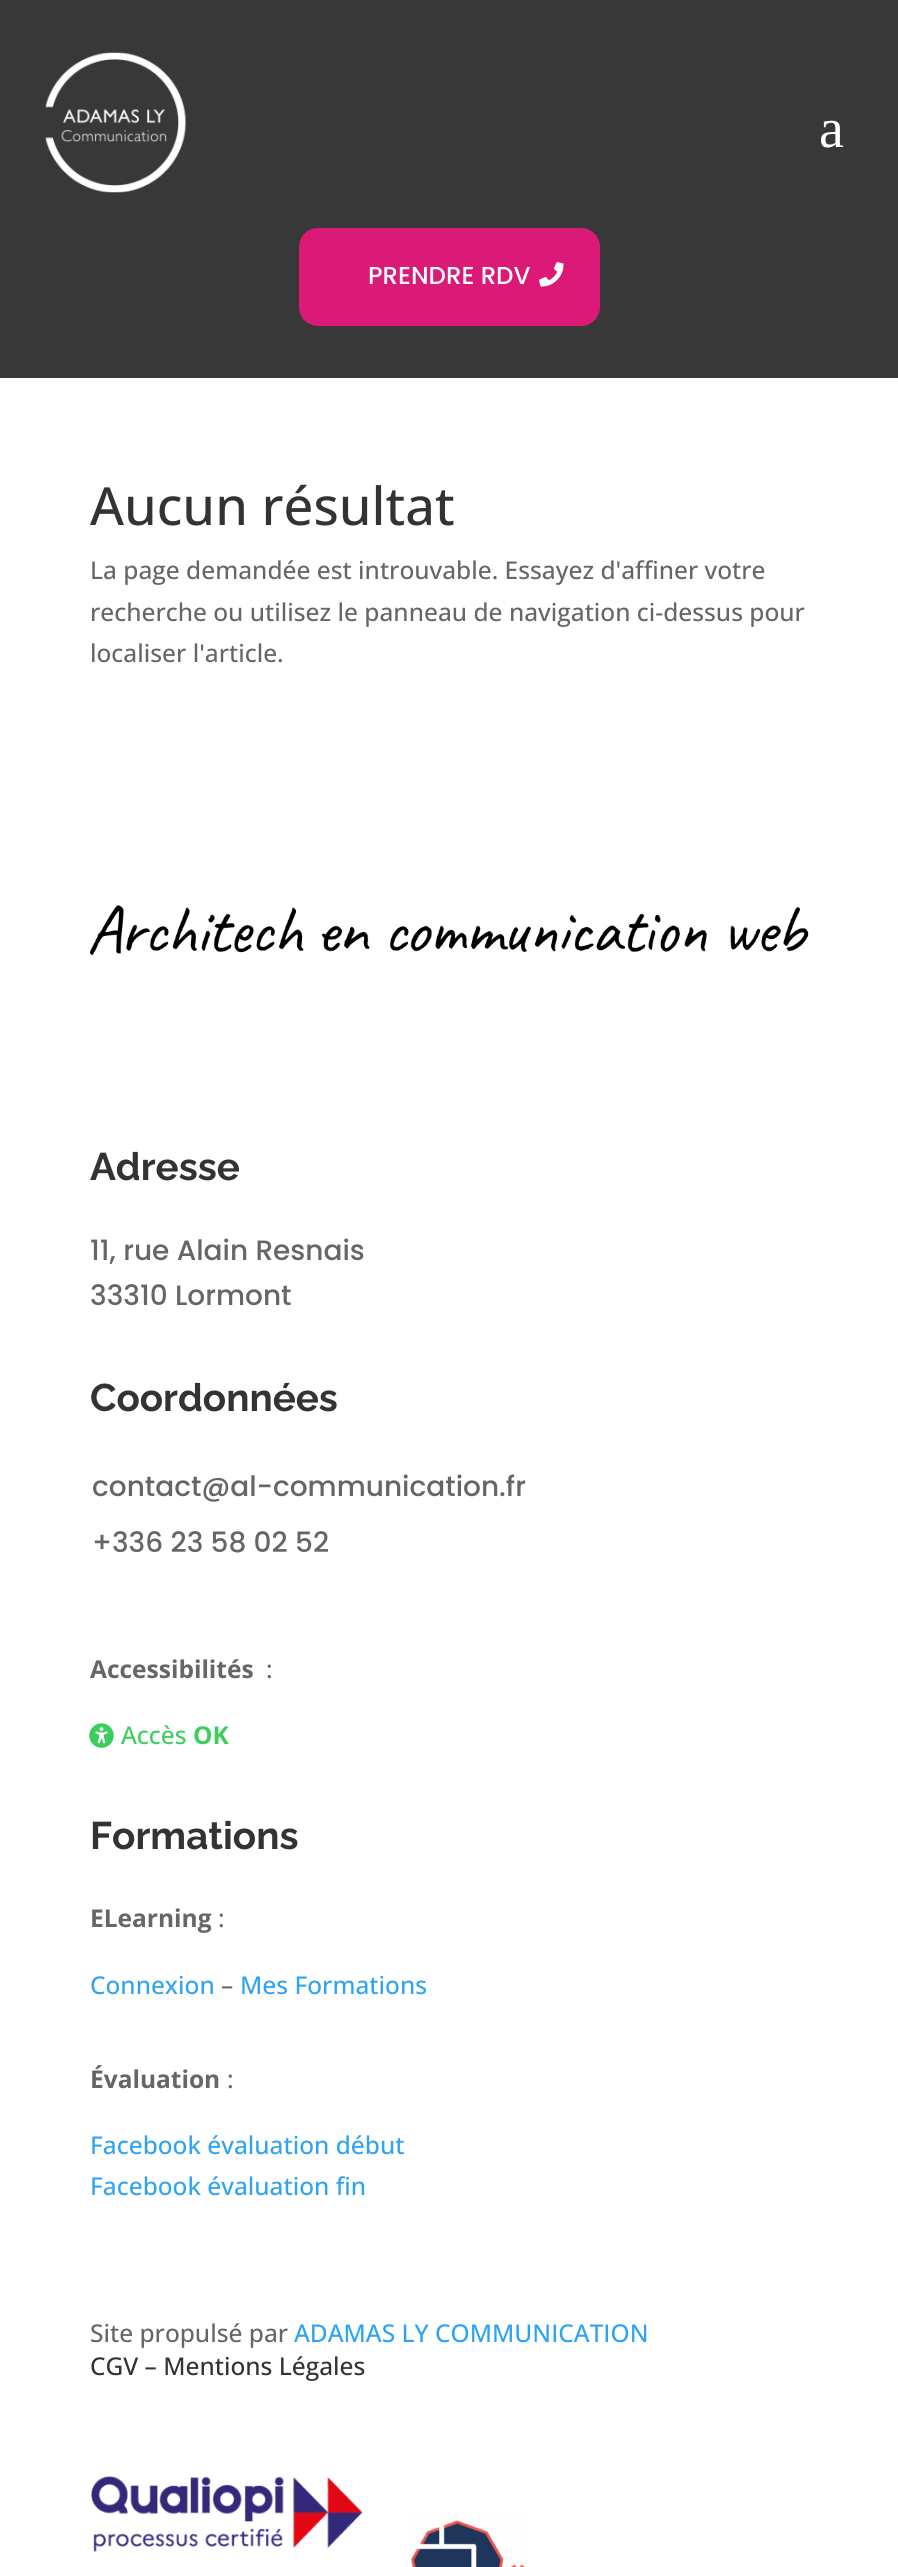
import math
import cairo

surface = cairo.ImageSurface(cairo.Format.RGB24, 898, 2567)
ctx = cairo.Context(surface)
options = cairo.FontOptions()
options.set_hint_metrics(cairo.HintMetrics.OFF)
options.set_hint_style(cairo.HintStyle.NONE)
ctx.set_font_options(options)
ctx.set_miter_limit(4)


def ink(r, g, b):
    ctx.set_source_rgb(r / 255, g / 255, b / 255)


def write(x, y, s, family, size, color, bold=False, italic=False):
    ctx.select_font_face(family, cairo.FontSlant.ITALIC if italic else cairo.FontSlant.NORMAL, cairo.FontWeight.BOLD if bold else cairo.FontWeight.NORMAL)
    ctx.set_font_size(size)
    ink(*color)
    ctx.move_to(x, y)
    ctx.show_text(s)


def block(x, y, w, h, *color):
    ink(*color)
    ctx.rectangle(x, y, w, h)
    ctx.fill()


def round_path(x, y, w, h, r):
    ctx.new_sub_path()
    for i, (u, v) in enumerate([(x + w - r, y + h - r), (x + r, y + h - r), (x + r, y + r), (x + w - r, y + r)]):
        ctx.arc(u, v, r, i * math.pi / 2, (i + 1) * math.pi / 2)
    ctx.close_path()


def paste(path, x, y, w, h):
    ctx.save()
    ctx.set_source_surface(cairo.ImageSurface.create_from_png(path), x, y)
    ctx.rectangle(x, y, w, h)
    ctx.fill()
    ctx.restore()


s1 = dict(family="Liberation Serif", size=56, color=(255, 255, 255))
s2 = dict(family="Poppins Medium", size=24.5, color=(255, 255, 255))
s3 = dict(family="Open Sans Medium", size=52.5, color=(51, 51, 51))
s4 = dict(family="Open Sans Medium", size=24.5, color=(102, 102, 102))
s5 = dict(family="Raleway", size=38.5, color=(51, 51, 51), bold=True)
s6 = dict(family="Poppins Medium", size=28, color=(102, 102, 102))
s7 = dict(family="Open Sans", size=24.5, color=(102, 102, 102), bold=True)
s8 = dict(family="Open Sans Medium", size=24.5, color=(59, 206, 92))
s9 = dict(family="Open Sans", size=24.5, color=(59, 206, 92), bold=True)
s10 = dict(family="Open Sans Medium", size=24.5, color=(46, 163, 242))
s11 = dict(family="Open Sans Medium", size=24.5, color=(51, 51, 51))

ink(255, 255, 255)
ctx.paint()
block(0, 0, 898, 378, 56, 56, 56)
paste("pic1.png", 45, 52, 141, 141)
write(819, 147, "a", **s1)
ink(219, 26, 119)
round_path(299, 228, 301, 98, 19)
ctx.fill()
write(368, 284, "PRENDRE RDV", **s2)
paste("pic2.png", 539, 262, 25, 25)
write(90, 525, "Aucun résultat", **s3)
write(90, 579, "La page demandée est introuvable. Essayez d'affiner votre", **s4)
write(90, 621, "recherche ou utilisez le panneau de navigation ci-dessus pour", **s4)
write(90, 662, "localiser l'article.", **s4)
paste("pic3.png", 89, 905, 720, 51)
write(90, 1180, "Adresse", **s5)
write(90, 1260, "11, rue Alain Resnais", **s6)
write(90, 1305, "33310 Lormont", **s6)
write(90, 1411, "Coordonnées", **s5)
write(92, 1496, "contact@al-communication.fr", **s6)
write(92, 1552, "+336 23 58 02 52", **s6)
write(90, 1678, "Accessibilités", **s7)
write(266, 1678, ":", **s4)
paste("pic4.png", 89, 1723, 25, 25)
write(121, 1744, "Accès", **s8)
write(193, 1744, "OK", **s9)
write(90, 1849, "Formations", **s5)
write(90, 1927, "ELearning", **s7)
write(218, 1927, ":", **s4)
write(90, 1994, "Connexion", **s10)
write(221, 1994, "–", **s4)
write(240, 1994, "Mes Formations", **s10)
write(90, 2088, "Évaluation", **s7)
write(227, 2088, ":", **s4)
write(90, 2154, "Facebook évaluation début", **s10)
write(90, 2195, "Facebook évaluation fin", **s10)
write(90, 2342, "Site propulsé par", **s4)
write(294, 2342, "ADAMAS LY COMMUNICATION", **s10)
write(90, 2375, "CGV – Mentions Légales", **s11)
paste("pic5.png", 91, 2476, 272, 76)
paste("pic6.png", 409, 2516, 121, 51)
surface.write_to_png("screenshot.png")
